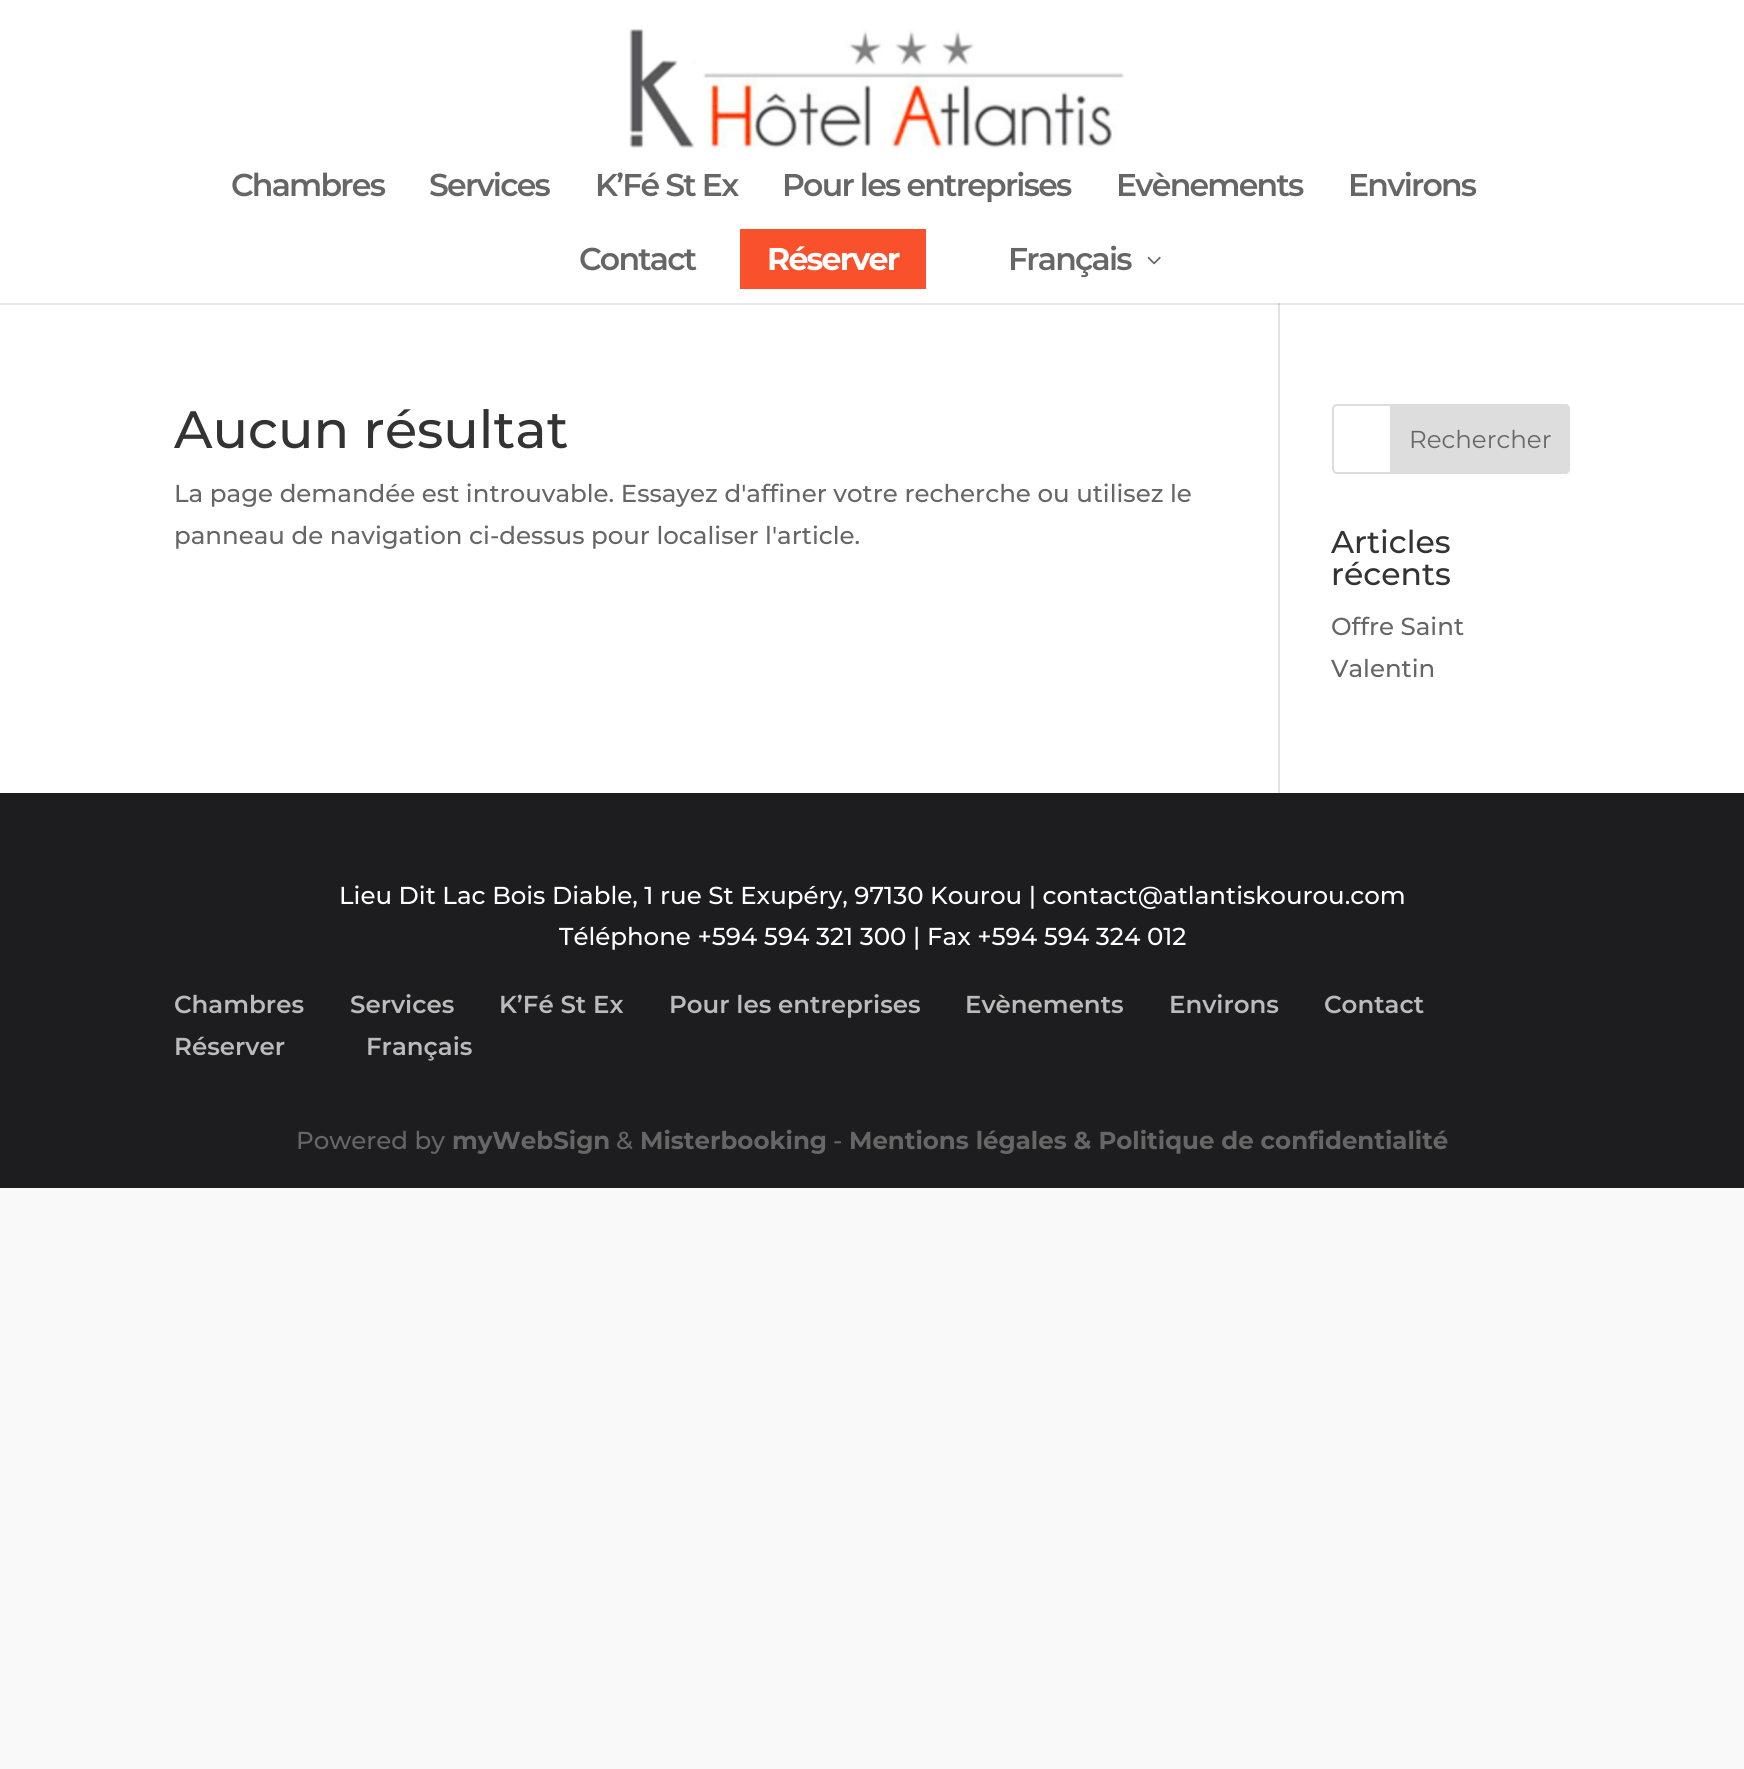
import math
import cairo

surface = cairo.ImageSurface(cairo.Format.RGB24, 1744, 1769)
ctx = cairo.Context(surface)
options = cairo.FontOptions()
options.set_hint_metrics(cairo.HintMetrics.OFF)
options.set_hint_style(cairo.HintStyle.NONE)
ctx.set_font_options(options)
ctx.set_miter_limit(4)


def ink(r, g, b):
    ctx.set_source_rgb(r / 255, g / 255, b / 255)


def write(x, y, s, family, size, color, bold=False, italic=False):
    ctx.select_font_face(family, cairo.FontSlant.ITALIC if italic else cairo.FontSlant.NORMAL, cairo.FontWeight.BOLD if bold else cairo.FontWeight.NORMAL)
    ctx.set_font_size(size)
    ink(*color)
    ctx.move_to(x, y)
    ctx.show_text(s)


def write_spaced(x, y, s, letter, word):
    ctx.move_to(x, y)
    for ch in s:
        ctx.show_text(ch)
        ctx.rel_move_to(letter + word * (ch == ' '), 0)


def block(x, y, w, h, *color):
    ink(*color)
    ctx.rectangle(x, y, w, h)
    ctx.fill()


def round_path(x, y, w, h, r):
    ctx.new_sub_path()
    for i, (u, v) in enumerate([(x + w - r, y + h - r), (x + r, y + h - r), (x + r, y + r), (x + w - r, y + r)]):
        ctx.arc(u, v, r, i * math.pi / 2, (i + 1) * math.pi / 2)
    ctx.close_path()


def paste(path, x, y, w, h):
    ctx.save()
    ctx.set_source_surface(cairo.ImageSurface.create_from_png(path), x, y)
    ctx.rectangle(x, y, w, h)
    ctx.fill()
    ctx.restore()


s1 = dict(family="Montserrat Medium", size=52.5, color=(51, 51, 51))
s2 = dict(family="Montserrat Medium", size=24.5, color=(102, 102, 102))
s3 = dict(family="Montserrat", size=24.5, color=(102, 102, 102))
s4 = dict(family="Montserrat Medium", size=31.5, color=(51, 51, 51))
s5 = dict(family="Montserrat Medium", size=24.5, color=(255, 255, 255))
s6 = dict(family="Montserrat SemiBold", size=24.5, color=(187, 187, 187))
s7 = dict(family="Montserrat", size=24.5, color=(102, 102, 102), bold=True)

ink(249, 249, 249)
ctx.paint()
block(0, 0, 1744, 793, 255, 255, 255)
block(1278, 303, 2, 490, 226, 226, 226)
ctx.set_source_rgba(0, 0, 0, 0.1)
ctx.new_path()
ctx.move_to(0, 303)
ctx.line_to(0, 305)
ctx.line_to(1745, 305)
ctx.line_to(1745, 2)
ctx.line_to(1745, 303)
ctx.close_path()
ctx.fill()
paste("pic1.png", 629, 29, 495, 119)
ctx.select_font_face("Montserrat SemiBold")
ctx.set_font_size(31.5)
ink(102, 102, 102)
write_spaced(231, 196, "Chambres", -1.75, 0)
write_spaced(429, 196, "Services", -1.75, 0)
write_spaced(595, 196, "K’Fé St Ex", -1.75, 0)
write_spaced(782, 196, "Pour les entreprises", -1.75, 0)
write_spaced(1116, 196, "Evènements", -1.75, 0)
write_spaced(1348, 196, "Environs", -1.75, 0)
write_spaced(579, 270, "Contact", -1.75, 0)
block(740, 229, 186, 60, 250, 81, 45)
ctx.select_font_face("Montserrat", cairo.FontSlant.NORMAL, cairo.FontWeight.BOLD)
ink(255, 255, 255)
write_spaced(767, 270, "Réserver", -1.75, 0)
ctx.select_font_face("Montserrat SemiBold")
ink(102, 102, 102)
write_spaced(1008, 270, "Français", -1.75, 0)
paste("pic2.png", 1147, 256, 14, 9)
write(174, 448, "Aucun résultat", **s1)
write(174, 502, "La page demandée est introuvable. Essayez d'affiner votre recherche ou utilisez le", **s2)
write(174, 544, "panneau de navigation ci-dessus pour localiser l'article.", **s2)
round_path(1333, 405, 236, 68, 4)
ink(221, 221, 221)
ctx.stroke()
ctx.new_path()
ctx.move_to(1391, 405)
ctx.line_to(1565, 405)
ctx.curve_to(1567, 405, 1569, 407, 1569, 409)
ctx.line_to(1569, 469)
ctx.curve_to(1569, 471, 1567, 473, 1565, 473)
ctx.line_to(1391, 473)
ctx.close_path()
ctx.fill_preserve()
ctx.stroke()
write(1409, 448, "Rechercher", **s3)
write(1331, 553, "Articles", **s4)
write(1331, 585, "récents", **s4)
write(1331, 635, "Offre Saint", **s2)
write(1331, 677, "Valentin", **s2)
block(0, 793, 1744, 395, 29, 29, 31)
write(339, 904, "Lieu Dit Lac Bois Diable, 1 rue St Exupéry, 97130 Kourou | contact@atlantiskourou.com", **s5)
write(559, 945, "Téléphone +594 594 321 300 | Fax +594 594 324 012", **s5)
write(174, 1013, "Chambres", **s6)
write(350, 1013, "Services", **s6)
write(499, 1013, "K’Fé St Ex", **s6)
write(669, 1013, "Pour les entreprises", **s6)
write(965, 1013, "Evènements", **s6)
write(1169, 1013, "Environs", **s6)
write(1324, 1013, "Contact", **s6)
write(174, 1055, "Réserver", **s6)
write(366, 1055, "Français", **s6)
write(296, 1149, "Powered by", **s2)
write(452, 1149, "myWebSign", **s7)
write(616, 1149, "&", **s2)
write(640, 1149, "Misterbooking", **s7)
write(833, 1149, "-", **s2)
write(849, 1149, "Mentions légales & Politique de confidentialité", **s7)
surface.write_to_png("screenshot.png")
